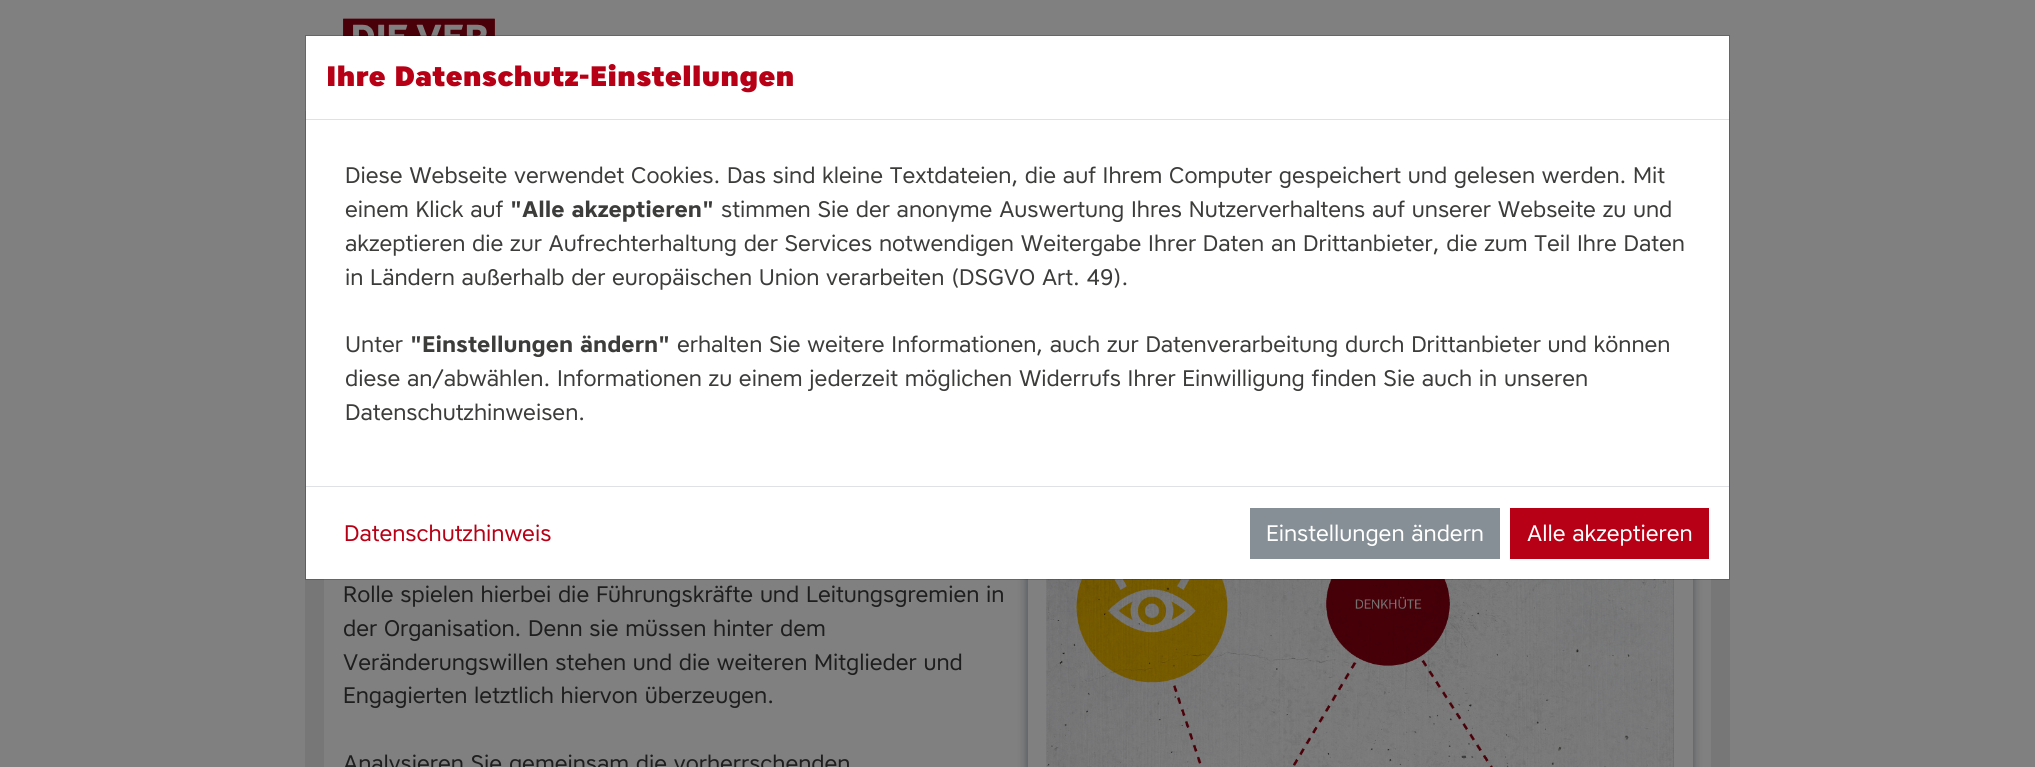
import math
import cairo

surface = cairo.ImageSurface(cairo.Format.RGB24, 2035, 767)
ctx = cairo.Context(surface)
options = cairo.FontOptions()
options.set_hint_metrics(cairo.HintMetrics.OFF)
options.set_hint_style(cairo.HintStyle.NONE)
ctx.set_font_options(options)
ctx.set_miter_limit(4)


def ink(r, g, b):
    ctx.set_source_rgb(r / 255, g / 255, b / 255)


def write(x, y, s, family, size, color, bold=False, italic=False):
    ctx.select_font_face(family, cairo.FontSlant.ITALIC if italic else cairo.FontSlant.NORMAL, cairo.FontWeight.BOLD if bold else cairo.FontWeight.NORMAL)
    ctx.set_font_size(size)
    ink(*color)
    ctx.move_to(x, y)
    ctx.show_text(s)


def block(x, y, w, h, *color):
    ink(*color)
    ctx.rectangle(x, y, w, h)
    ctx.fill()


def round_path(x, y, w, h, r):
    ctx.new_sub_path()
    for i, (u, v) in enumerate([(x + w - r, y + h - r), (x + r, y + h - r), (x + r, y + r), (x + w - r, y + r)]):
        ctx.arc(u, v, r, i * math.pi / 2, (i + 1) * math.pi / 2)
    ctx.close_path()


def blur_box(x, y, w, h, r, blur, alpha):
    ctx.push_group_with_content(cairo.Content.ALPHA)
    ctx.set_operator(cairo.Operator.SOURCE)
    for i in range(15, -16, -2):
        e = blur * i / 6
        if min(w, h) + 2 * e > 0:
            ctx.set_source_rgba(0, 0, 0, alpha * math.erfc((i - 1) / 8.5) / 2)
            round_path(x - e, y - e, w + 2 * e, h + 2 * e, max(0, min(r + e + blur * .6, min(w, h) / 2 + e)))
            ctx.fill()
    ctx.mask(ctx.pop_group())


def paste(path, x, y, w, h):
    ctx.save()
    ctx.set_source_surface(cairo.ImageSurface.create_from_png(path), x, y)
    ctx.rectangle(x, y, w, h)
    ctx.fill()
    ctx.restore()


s1 = dict(family="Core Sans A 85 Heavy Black", size=28.1, color=(183, 0, 21))
s2 = dict(family="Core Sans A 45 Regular", size=22.5, color=(60, 60, 59))
s3 = dict(family="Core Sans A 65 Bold", size=22.5, color=(60, 60, 59), bold=True)
s4 = dict(family="Core Sans A 45 Regular", size=22.5, color=(183, 0, 21))
s5 = dict(family="Core Sans A 45 Regular", size=22.5, color=(255, 255, 255))
s6 = dict(family="Core Sans A 45 Regular", size=22.5, color=(30, 30, 30))

ink(128, 128, 128)
ctx.paint()
paste("pic1.png", 343, 18, 152, 18)
block(1711, 458, 19, 309, 119, 119, 119)
block(305, 458, 19, 309, 119, 119, 119)
ink(87, 91, 95)
blur_box(1026, 475, 668, 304, 0, 4, 1)
ctx.rectangle(1037.5, 485.5, 646, 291)
ink(128, 128, 128)
ctx.set_line_width(19)
ctx.stroke()
block(306, 36, 1423, 543, 255, 255, 255)
block(1729, 111, 1, 347, 119, 119, 119)
block(305, 111, 1, 347, 119, 119, 119)
paste("pic2.png", 1046, 579, 628, 188)
ctx.rectangle(305.5, 35.5, 1424, 544)
ctx.set_source_rgba(0, 0, 0, 0.2)
ctx.set_line_width(1)
ctx.stroke()
block(306, 119, 1423, 1, 222, 226, 230)
write(326, 86, "Ihre Datenschutz-Einstellungen", **s1)
write(345, 183, "Diese Webseite verwendet Cookies. Das sind kleine Textdateien, die auf Ihrem Computer gespeichert und gelesen werden. Mit", **s2)
write(345, 217, "einem Klick auf", **s2)
write(510, 217, "\"Alle akzeptieren\"", **s3)
write(721, 217, "stimmen Sie der anonyme Auswertung Ihres Nutzerverhaltens auf unserer Webseite zu und", **s2)
write(345, 251, "akzeptieren die zur Aufrechterhaltung der Services notwendigen Weitergabe Ihrer Daten an Drittanbieter, die zum Teil Ihre Daten", **s2)
write(345, 285, "in Ländern außerhalb der europäischen Union verarbeiten (DSGVO Art. 49).", **s2)
write(345, 352, "Unter", **s2)
write(410, 352, "\"Einstellungen ändern\"", **s3)
write(677, 352, "erhalten Sie weitere Informationen, auch zur Datenverarbeitung durch Drittanbieter und können", **s2)
write(345, 386, "diese an/abwählen. Informationen zu einem jederzeit möglichen Widerrufs Ihrer Einwilligung finden Sie auch in unseren", **s2)
write(345, 420, "Datenschutzhinweisen.", **s2)
block(306, 486, 1423, 1, 222, 226, 230)
write(344, 541, "Datenschutzhinweis", **s4)
block(1250, 508, 250, 51, 134, 142, 150)
write(1266, 541, "Einstellungen ändern", **s5)
block(1510, 508, 199, 51, 183, 0, 21)
write(1527, 541, "Alle akzeptieren", **s5)
write(343, 602, "Rolle spielen hierbei die Führungskräfte und Leitungsgremien in", **s6)
write(343, 636, "der Organisation. Denn sie müssen hinter dem", **s6)
write(343, 670, "Veränderungswillen stehen und die weiteren Mitglieder und", **s6)
write(343, 703, "Engagierten letztlich hiervon überzeugen.", **s6)
write(343, 771, "Analysieren Sie gemeinsam die vorherrschenden", **s6)
surface.write_to_png("screenshot.png")
